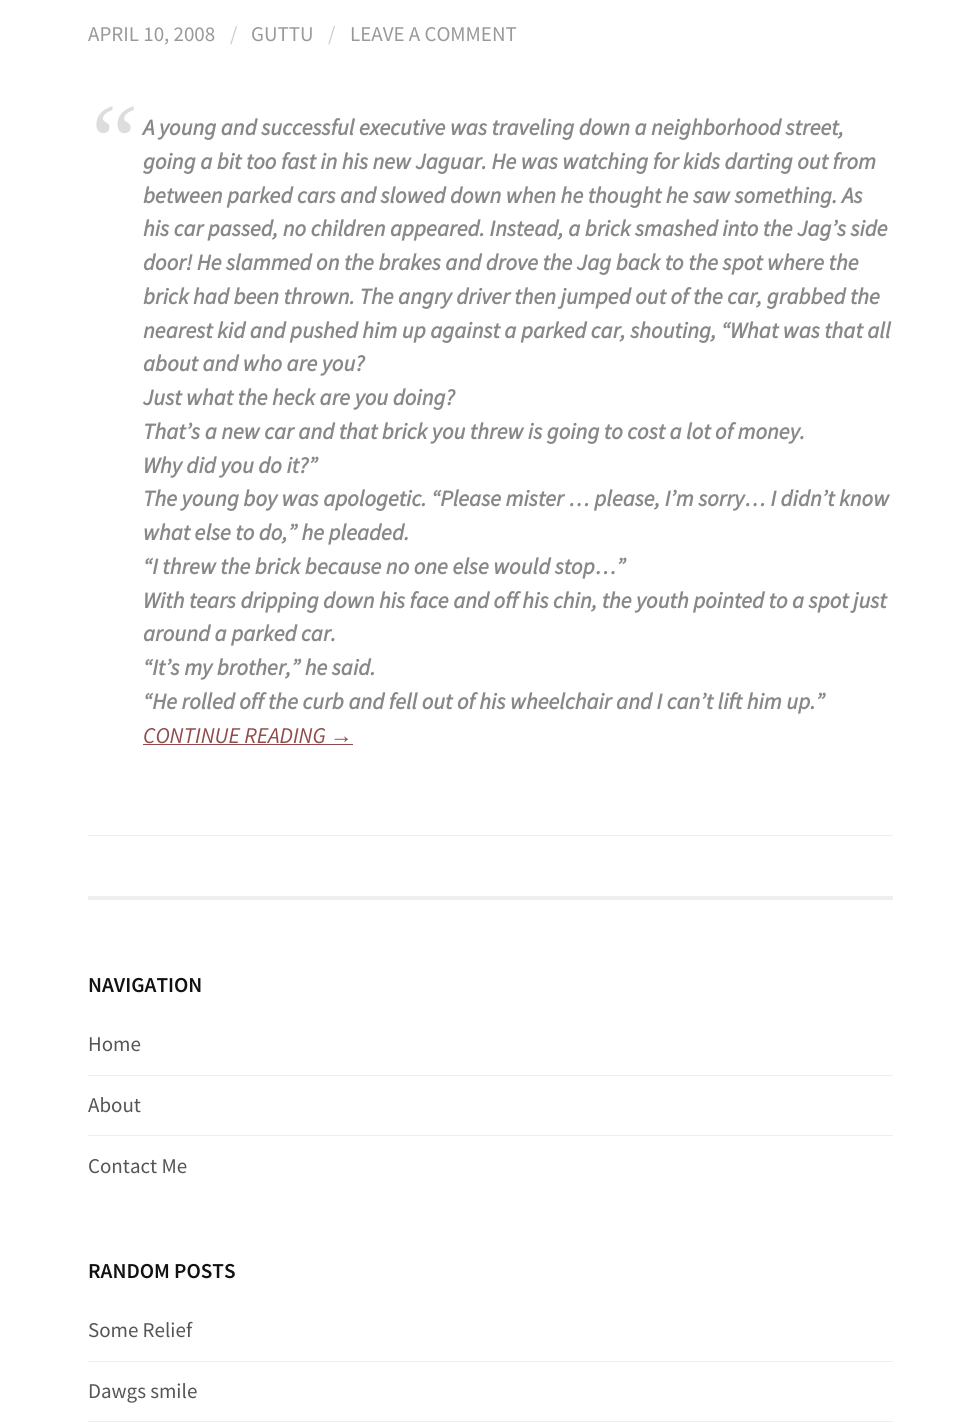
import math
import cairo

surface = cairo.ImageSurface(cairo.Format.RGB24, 979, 1423)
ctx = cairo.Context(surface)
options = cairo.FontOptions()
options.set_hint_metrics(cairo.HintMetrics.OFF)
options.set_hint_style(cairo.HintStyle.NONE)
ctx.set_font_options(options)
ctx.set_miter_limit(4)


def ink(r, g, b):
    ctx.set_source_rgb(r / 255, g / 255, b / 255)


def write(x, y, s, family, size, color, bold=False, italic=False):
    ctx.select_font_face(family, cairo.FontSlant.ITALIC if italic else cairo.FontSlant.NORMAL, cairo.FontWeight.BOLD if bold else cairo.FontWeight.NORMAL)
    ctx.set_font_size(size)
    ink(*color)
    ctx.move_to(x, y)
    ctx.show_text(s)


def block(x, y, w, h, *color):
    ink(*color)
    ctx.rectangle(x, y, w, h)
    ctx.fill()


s1 = dict(family="Source Sans Pro", size=21, color=(153, 153, 153))
s2 = dict(family="Source Sans Pro", size=21, color=(204, 204, 204))
s3 = dict(family="Liberation Serif", size=105, color=(221, 221, 221), italic=True)
s4 = dict(family="Source Sans Pro", size=22.5, color=(136, 136, 136), bold=True, italic=True)
s5 = dict(family="Source Sans Pro", size=22.5, color=(145, 75, 75), italic=True)
s6 = dict(family="Liberation Sans", size=22.5, color=(145, 75, 75), italic=True)
s7 = dict(family="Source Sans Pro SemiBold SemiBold", size=21.25, color=(17, 17, 17))
s8 = dict(family="Source Sans Pro", size=21, color=(85, 85, 85))

ink(255, 255, 255)
ctx.paint()
block(88, 835, 805, 1, 238, 238, 238)
write(88, 41, "APRIL 10, 2008", **s1)
write(230, 41, "/", **s2)
write(251, 41, "GUTTU", **s1)
write(328, 41, "/", **s2)
write(350, 41, "LEAVE A COMMENT", **s1)
write(81, 176, "“", **s3)
write(143, 135, "A young and successful executive was traveling down a neighborhood street,", **s4)
write(143, 169, "going a bit too fast in his new Jaguar. He was watching for kids darting out from", **s4)
write(143, 203, "between parked cars and slowed down when he thought he saw something. As", **s4)
write(143, 236, "his car passed, no children appeared. Instead, a brick smashed into the Jag’s side", **s4)
write(143, 270, "door! He slammed on the brakes and drove the Jag back to the spot where the", **s4)
write(143, 304, "brick had been thrown. The angry driver then jumped out of the car, grabbed the", **s4)
write(143, 338, "nearest kid and pushed him up against a parked car, shouting, “What was that all", **s4)
write(143, 371, "about and who are you?", **s4)
write(143, 405, "Just what the heck are you doing?", **s4)
write(143, 439, "That’s a new car and that brick you threw is going to cost a lot of money.", **s4)
write(143, 473, "Why did you do it?”", **s4)
write(143, 506, "The young boy was apologetic. “Please mister … please, I’m sorry… I didn’t know", **s4)
write(143, 540, "what else to do,” he pleaded.", **s4)
write(143, 574, "“I threw the brick because no one else would stop…”", **s4)
write(143, 608, "With tears dripping down his face and off his chin, the youth pointed to a spot just", **s4)
write(143, 641, "around a parked car.", **s4)
write(143, 675, "“It’s my brother,” he said.", **s4)
write(143, 709, "“He rolled off the curb and fell out of his wheelchair and I can’t lift him up.”", **s4)
write(143, 743, "CONTINUE READING", **s5)
write(330, 743, "→", **s6)
block(143, 744, 210, 1, 145, 75, 75)
block(88, 896, 805, 4, 238, 238, 238)
write(88, 992, "NAVIGATION", **s7)
write(88, 1051, "Home", **s8)
block(88, 1075, 805, 1, 238, 238, 238)
write(88, 1112, "About", **s8)
block(88, 1135, 805, 1, 238, 238, 238)
write(88, 1173, "Contact Me", **s8)
write(88, 1278, "RANDOM POSTS", **s7)
write(88, 1337, "Some Relief", **s8)
block(88, 1361, 805, 1, 238, 238, 238)
write(88, 1398, "Dawgs smile", **s8)
block(88, 1421, 805, 1, 238, 238, 238)
surface.write_to_png("screenshot.png")
